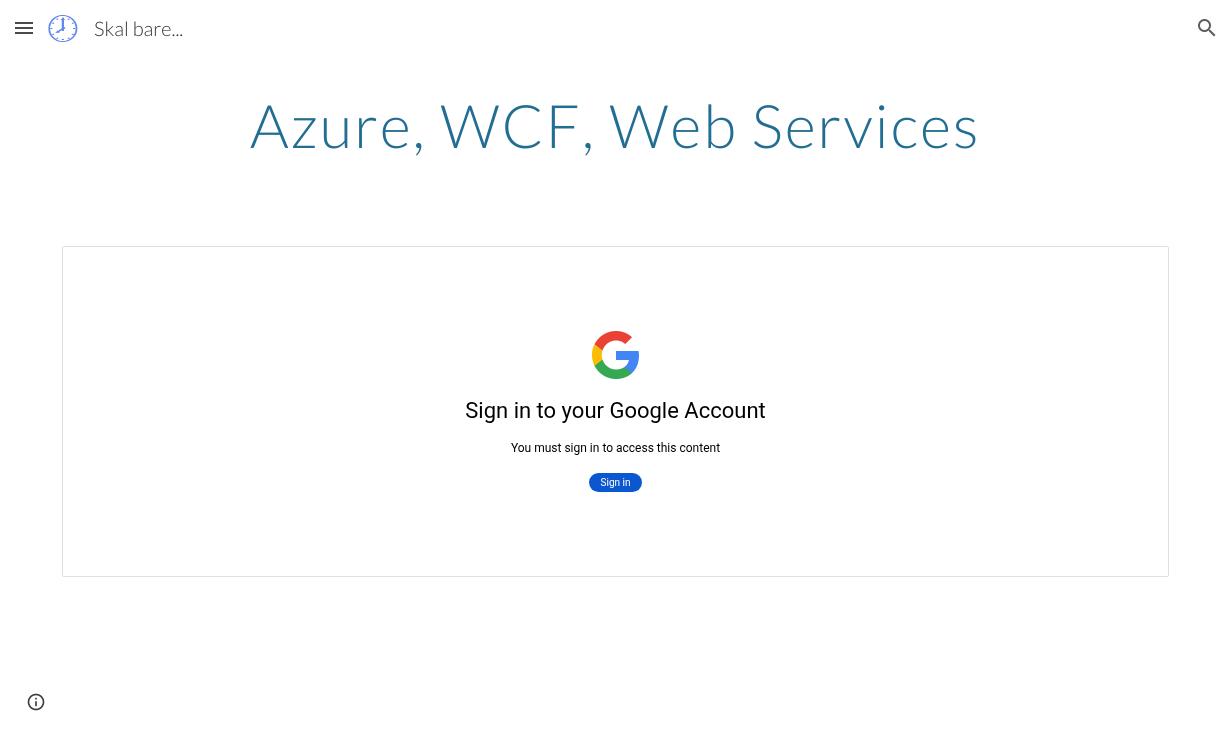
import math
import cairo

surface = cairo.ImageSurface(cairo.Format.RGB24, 1231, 736)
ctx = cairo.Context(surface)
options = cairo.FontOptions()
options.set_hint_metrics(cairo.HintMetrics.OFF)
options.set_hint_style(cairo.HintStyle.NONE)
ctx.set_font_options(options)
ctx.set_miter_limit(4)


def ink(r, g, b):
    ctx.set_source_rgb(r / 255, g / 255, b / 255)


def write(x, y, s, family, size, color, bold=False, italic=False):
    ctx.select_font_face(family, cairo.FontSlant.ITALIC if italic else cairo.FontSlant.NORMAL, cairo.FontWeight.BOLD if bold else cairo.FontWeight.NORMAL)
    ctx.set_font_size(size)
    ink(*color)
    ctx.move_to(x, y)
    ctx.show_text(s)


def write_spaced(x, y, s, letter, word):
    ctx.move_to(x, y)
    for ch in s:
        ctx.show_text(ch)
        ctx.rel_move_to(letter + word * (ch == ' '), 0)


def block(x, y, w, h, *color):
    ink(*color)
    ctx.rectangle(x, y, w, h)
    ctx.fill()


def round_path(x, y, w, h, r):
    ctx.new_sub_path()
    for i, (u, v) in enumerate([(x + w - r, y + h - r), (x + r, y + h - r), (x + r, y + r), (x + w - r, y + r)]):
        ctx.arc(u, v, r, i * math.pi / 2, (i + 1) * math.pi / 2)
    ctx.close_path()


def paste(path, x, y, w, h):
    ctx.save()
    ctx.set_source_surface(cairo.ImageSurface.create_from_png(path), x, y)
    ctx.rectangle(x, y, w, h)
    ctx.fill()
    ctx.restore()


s1 = dict(family="Lato Light", size=20, color=(51, 51, 51))

ink(255, 255, 255)
ctx.paint()
block(15, 22, 18, 2, 75, 75, 75)
block(15, 27, 18, 2, 75, 75, 75)
block(15, 32, 18, 2, 75, 75, 75)
paste("pic1.png", 48, 15, 30, 27)
write(94, 36, "Skal bare...", **s1)
paste("pic2.png", 1198, 19, 18, 18)
ctx.set_font_size(60)
ink(34, 110, 147)
write_spaced(250, 148, "Azure, WCF, Web Services", 2, 0)
round_path(62.5, 246.5, 1106, 330, 1.5)
ink(224, 224, 224)
ctx.set_line_width(1)
ctx.stroke()
paste("pic3.png", 466, 331, 299, 161)
paste("pic4.png", 27, 693, 18, 18)
surface.write_to_png("screenshot.png")
